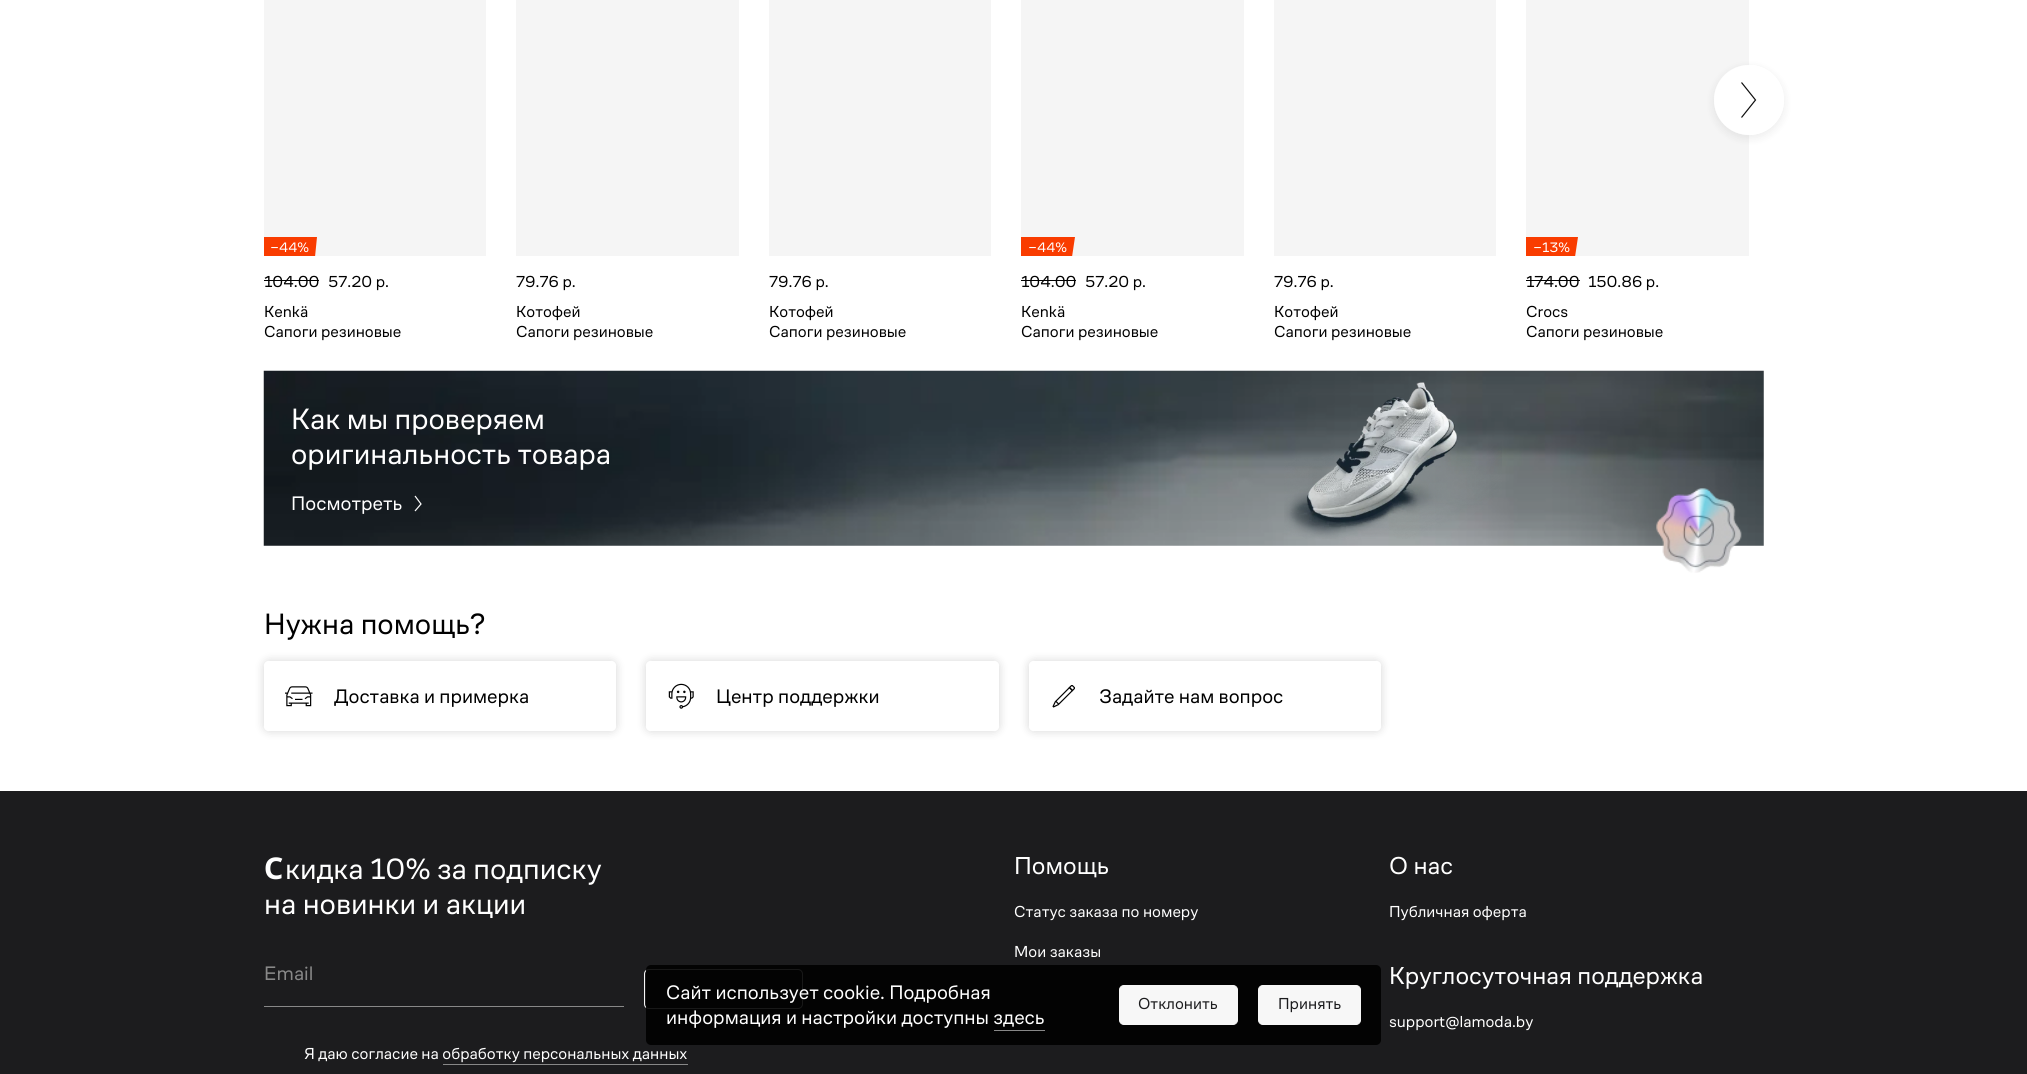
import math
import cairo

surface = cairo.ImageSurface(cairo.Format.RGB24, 2027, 1074)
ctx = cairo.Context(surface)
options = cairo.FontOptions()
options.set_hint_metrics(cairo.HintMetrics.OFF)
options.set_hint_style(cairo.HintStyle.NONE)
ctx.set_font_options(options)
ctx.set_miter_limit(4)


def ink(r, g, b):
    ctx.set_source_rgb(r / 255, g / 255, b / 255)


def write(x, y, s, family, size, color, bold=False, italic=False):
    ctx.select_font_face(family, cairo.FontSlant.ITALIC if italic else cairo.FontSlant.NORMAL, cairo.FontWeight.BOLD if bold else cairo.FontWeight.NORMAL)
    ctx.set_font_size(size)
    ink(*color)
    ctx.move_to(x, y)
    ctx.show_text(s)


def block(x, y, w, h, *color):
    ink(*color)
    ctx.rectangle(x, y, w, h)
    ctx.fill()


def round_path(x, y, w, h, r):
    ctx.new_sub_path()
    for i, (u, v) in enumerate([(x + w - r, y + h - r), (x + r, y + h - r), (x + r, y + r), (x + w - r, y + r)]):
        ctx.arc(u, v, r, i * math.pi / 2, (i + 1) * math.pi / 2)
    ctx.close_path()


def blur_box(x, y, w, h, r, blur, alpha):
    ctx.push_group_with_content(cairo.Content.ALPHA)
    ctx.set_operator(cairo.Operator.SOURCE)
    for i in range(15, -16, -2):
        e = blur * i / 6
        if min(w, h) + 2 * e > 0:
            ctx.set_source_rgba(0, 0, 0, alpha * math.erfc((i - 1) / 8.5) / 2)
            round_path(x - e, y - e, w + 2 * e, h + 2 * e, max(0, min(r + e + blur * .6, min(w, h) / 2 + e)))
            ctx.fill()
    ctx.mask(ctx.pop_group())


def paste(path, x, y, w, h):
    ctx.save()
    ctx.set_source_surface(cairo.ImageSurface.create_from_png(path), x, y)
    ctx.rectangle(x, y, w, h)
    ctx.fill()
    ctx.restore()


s1 = dict(family="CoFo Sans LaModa", size=14, color=(255, 255, 255))
s2 = dict(family="CoFo Sans LaModa", size=16.25, color=(0, 0, 0))
s3 = dict(family="CoFo Sans LaModa", size=30, color=(255, 255, 255))
s4 = dict(family="CoFo Sans LaModa", size=20, color=(255, 255, 255))
s5 = dict(family="CoFo Sans LaModa", size=30, color=(0, 0, 0))
s6 = dict(family="CoFo Sans LaModa", size=20, color=(0, 0, 0))
s7 = dict(family="Noto Sans", size=30, color=(255, 255, 255), bold=True)
s8 = dict(family="CoFo Sans LaModa", size=20, color=(136, 136, 136))
s9 = dict(family="CoFo Sans LaModa", size=16.25, color=(255, 255, 255))
s10 = dict(family="CoFo Sans LaModa", size=25, color=(255, 255, 255))
s11 = dict(family="CoFo Sans LaModa", size=16.25, color=(28, 28, 30))

ink(255, 255, 255)
ctx.paint()
block(1526, 0, 223, 256, 245, 245, 245)
ctx.save()
ctx.set_fill_rule(cairo.FillRule.EVEN_ODD)
ctx.new_path()
ctx.move_to(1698, 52)
ctx.line_to(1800, 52)
ctx.line_to(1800, 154)
ctx.line_to(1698, 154)
ctx.close_path()
ctx.move_to(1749, 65)
ctx.curve_to(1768.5, 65, 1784, 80.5, 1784, 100)
ctx.curve_to(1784, 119.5, 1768.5, 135, 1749, 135)
ctx.curve_to(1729.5, 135, 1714, 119.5, 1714, 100)
ctx.curve_to(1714, 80.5, 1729.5, 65, 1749, 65)
ctx.close_path()
ctx.clip()
ink(0, 0, 0)
blur_box(1714, 68, 70, 70, 35, 5, 0.08)
ctx.restore()
ctx.set_source_rgba(1, 1, 1, 0.95)
ctx.arc(1749, 100, 35, 0, 2 * math.pi)
ctx.fill()
ctx.new_path()
ctx.move_to(1741.5, 82.5)
ctx.line_to(1755.5, 100)
ctx.line_to(1741.5, 117.5)
ink(13, 13, 13)
ctx.set_line_width(1.2)
ctx.stroke()
block(264, 0, 222, 256, 245, 245, 245)
ctx.save()
ctx.rectangle(264, 0, 222, 256)
ctx.clip()
ink(249, 60, 0)
ctx.new_path()
ctx.move_to(262, 237)
ctx.line_to(317, 237)
ctx.line_to(315, 257)
ctx.line_to(260, 257)
ctx.close_path()
ctx.fill()
ctx.restore()
write(270, 252, "−44%", **s1)
write(264, 287, "104.00", **s2)
block(264, 280, 55, 1, 0, 0, 0)
write(328, 287, "57.20 р.", **s2)
write(264, 317, "Kenkä", **s2)
write(264, 337, "Сапоги резиновые", **s2)
block(516, 0, 223, 256, 245, 245, 245)
write(516, 287, "79.76 р.", **s2)
write(516, 317, "Котофей", **s2)
write(516, 337, "Сапоги резиновые", **s2)
block(769, 0, 222, 256, 245, 245, 245)
write(769, 287, "79.76 р.", **s2)
write(769, 317, "Котофей", **s2)
write(769, 337, "Сапоги резиновые", **s2)
block(1021, 0, 223, 256, 245, 245, 245)
ctx.save()
ctx.rectangle(1021, 0, 223, 256)
ctx.clip()
ink(249, 60, 0)
ctx.new_path()
ctx.move_to(1020, 237)
ctx.line_to(1075, 237)
ctx.line_to(1072, 257)
ctx.line_to(1018, 257)
ctx.close_path()
ctx.fill()
ctx.restore()
write(1028, 252, "−44%", **s1)
write(1021, 287, "104.00", **s2)
block(1021, 280, 55, 1, 0, 0, 0)
write(1085, 287, "57.20 р.", **s2)
write(1021, 317, "Kenkä", **s2)
write(1021, 337, "Сапоги резиновые", **s2)
block(1274, 0, 222, 256, 245, 245, 245)
write(1274, 287, "79.76 р.", **s2)
write(1274, 317, "Котофей", **s2)
write(1274, 337, "Сапоги резиновые", **s2)
ctx.save()
ctx.rectangle(1526, 0, 223, 256)
ctx.clip()
ink(249, 60, 0)
ctx.new_path()
ctx.move_to(1525, 237)
ctx.line_to(1578, 237)
ctx.line_to(1575, 257)
ctx.line_to(1523, 257)
ctx.close_path()
ctx.fill()
ctx.restore()
write(1533, 252, "−13%", **s1)
write(1526, 287, "174.00", **s2)
block(1526, 280, 54, 1, 0, 0, 0)
write(1588, 287, "150.86 р.", **s2)
write(1526, 317, "Crocs", **s2)
write(1526, 337, "Сапоги резиновые", **s2)
paste("pic1.png", 263, 370, 1501, 176)
write(291, 429, "Как мы проверяем", **s3)
write(291, 464, "оригинальность товара", **s3)
write(291, 510, "Посмотреть", **s4)
ctx.new_path()
ctx.move_to(415, 496)
ctx.line_to(421, 504)
ctx.line_to(415, 511)
ctx.stroke()
paste("pic2.png", 1284, 382, 218, 157)
paste("pic3.png", 1656, 488, 86, 85)
write(264, 634, "Нужна помощь?", **s5)
ctx.save()
ctx.set_fill_rule(cairo.FillRule.EVEN_ODD)
ctx.new_path()
ctx.move_to(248, 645)
ctx.line_to(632, 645)
ctx.line_to(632, 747)
ctx.line_to(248, 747)
ctx.close_path()
ctx.move_to(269, 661)
ctx.line_to(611, 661)
ctx.curve_to(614, 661, 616, 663, 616, 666)
ctx.line_to(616, 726)
ctx.curve_to(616, 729, 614, 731, 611, 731)
ctx.line_to(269, 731)
ctx.curve_to(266, 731, 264, 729, 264, 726)
ctx.line_to(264, 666)
ctx.curve_to(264, 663, 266, 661, 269, 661)
ctx.close_path()
ctx.clip()
ink(0, 0, 0)
blur_box(264, 661, 352, 70, 5, 5, 0.16)
ctx.restore()
paste("pic4.png", 285, 686, 28, 21)
write(334, 703, "Доставка и примерка", **s6)
ctx.save()
ctx.set_fill_rule(cairo.FillRule.EVEN_ODD)
ctx.new_path()
ctx.move_to(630, 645)
ctx.line_to(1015, 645)
ctx.line_to(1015, 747)
ctx.line_to(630, 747)
ctx.close_path()
ctx.move_to(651, 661)
ctx.line_to(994, 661)
ctx.curve_to(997, 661, 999, 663, 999, 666)
ctx.line_to(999, 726)
ctx.curve_to(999, 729, 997, 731, 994, 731)
ctx.line_to(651, 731)
ctx.curve_to(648, 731, 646, 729, 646, 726)
ctx.line_to(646, 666)
ctx.curve_to(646, 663, 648, 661, 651, 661)
ctx.close_path()
ctx.clip()
ink(0, 0, 0)
blur_box(646, 661, 353, 70, 5, 5, 0.16)
ctx.restore()
paste("pic5.png", 668, 683, 26, 26)
write(716, 703, "Центр поддержки", **s6)
ctx.save()
ctx.set_fill_rule(cairo.FillRule.EVEN_ODD)
ctx.new_path()
ctx.move_to(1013, 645)
ctx.line_to(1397, 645)
ctx.line_to(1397, 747)
ctx.line_to(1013, 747)
ctx.close_path()
ctx.move_to(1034, 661)
ctx.line_to(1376, 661)
ctx.curve_to(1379, 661, 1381, 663, 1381, 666)
ctx.line_to(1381, 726)
ctx.curve_to(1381, 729, 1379, 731, 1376, 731)
ctx.line_to(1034, 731)
ctx.curve_to(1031, 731, 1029, 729, 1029, 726)
ctx.line_to(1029, 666)
ctx.curve_to(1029, 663, 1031, 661, 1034, 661)
ctx.close_path()
ctx.clip()
ink(0, 0, 0)
blur_box(1029, 661, 352, 70, 5, 5, 0.16)
ctx.restore()
paste("pic6.png", 1052, 685, 23, 23)
write(1099, 703, "Задайте нам вопрос", **s6)
block(0, 791, 2027, 283, 28, 28, 30)
write(264, 879, "С", **s7)
write(285, 879, "кидка 10% за подписку", **s3)
write(264, 914, "на новинки и акции", **s3)
block(264, 1006, 360, 1, 136, 136, 136)
write(264, 980, "Email", **s8)
round_path(644.5, 969.5, 158, 39, 4.5)
ink(247, 247, 247)
ctx.set_line_width(1)
ctx.stroke()
write(304, 1059, "Я даю согласие на обработку персональных данных", **s9)
block(443, 1064, 245, 1, 136, 136, 136)
write(1014, 874, "Помощь", **s10)
write(1014, 917, "Статус заказа по номеру", **s9)
write(1014, 957, "Мои заказы", **s9)
write(1389, 874, "О нас", **s10)
write(1389, 917, "Публичная оферта", **s9)
write(1389, 984, "Круглосуточная поддержка", **s10)
write(1389, 1027, "support@lamoda.by", **s9)
ctx.set_source_rgba(0, 0, 0, 0.9)
round_path(646, 965, 735, 80, 5)
ctx.fill()
write(666, 999, "Сайт использует cookie. Подробная", **s4)
write(666, 1024, "информация и настройки доступны здесь", **s4)
block(994, 1030, 51, 1, 136, 136, 136)
ink(247, 247, 247)
round_path(1119.5, 985.5, 118, 39, 4.5)
ctx.fill_preserve()
ctx.stroke()
write(1138, 1009, "Отклонить", **s11)
ink(247, 247, 247)
round_path(1258.5, 985.5, 102, 39, 4.5)
ctx.fill_preserve()
ctx.stroke()
write(1278, 1009, "Принять", **s11)
surface.write_to_png("screenshot.png")
